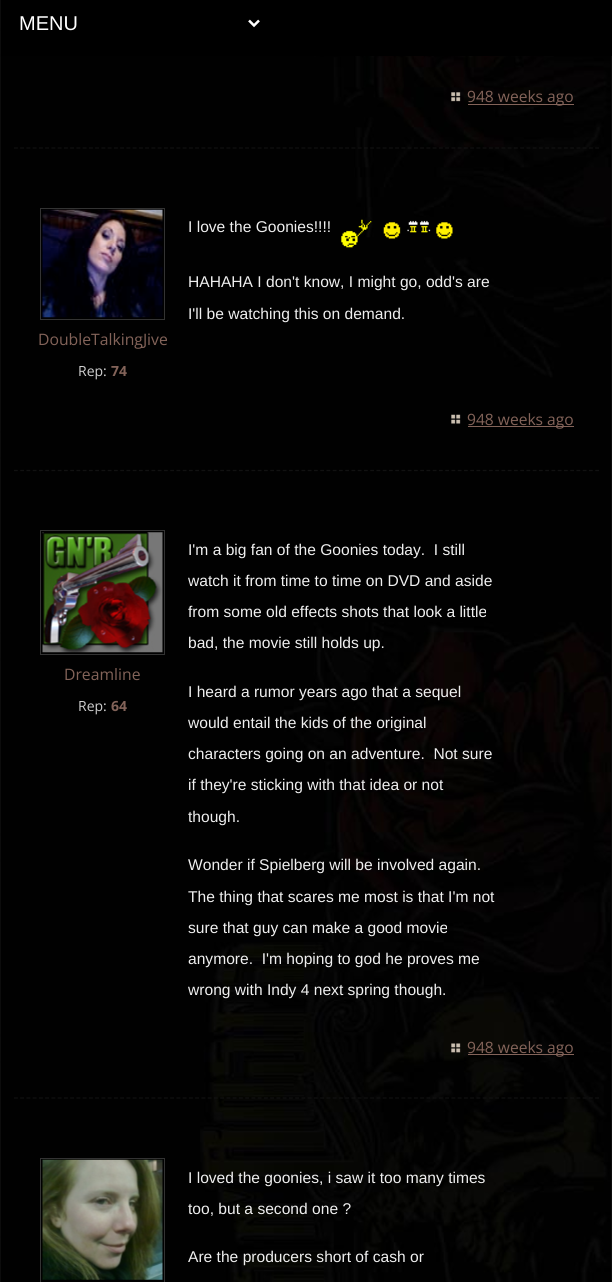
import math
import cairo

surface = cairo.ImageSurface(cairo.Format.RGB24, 612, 1282)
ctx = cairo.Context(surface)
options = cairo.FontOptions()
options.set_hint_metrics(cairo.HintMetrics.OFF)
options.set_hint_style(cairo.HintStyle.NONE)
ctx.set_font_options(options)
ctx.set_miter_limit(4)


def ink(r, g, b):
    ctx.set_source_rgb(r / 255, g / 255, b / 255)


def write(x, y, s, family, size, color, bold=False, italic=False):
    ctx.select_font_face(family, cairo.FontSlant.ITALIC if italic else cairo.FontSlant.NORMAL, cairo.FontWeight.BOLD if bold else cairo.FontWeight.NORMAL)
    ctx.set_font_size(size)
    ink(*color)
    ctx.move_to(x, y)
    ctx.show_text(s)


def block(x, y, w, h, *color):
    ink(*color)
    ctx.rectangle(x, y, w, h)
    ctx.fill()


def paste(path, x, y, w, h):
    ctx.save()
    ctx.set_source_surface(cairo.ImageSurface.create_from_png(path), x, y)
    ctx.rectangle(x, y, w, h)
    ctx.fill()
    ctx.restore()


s1 = dict(family="Liberation Sans", size=20, color=(255, 255, 255))
s2 = dict(family="Open Sans", size=15.6, color=(131, 99, 89))
s3 = dict(family="Liberation Sans", size=15.6, color=(239, 239, 239))
s4 = dict(family="Open Sans", size=15.75, color=(131, 99, 89))
s5 = dict(family="Open Sans", size=14, color=(208, 208, 208))
s6 = dict(family="Open Sans", size=14, color=(131, 99, 89), bold=True)

ink(255, 255, 255)
ctx.paint()
paste("pic1.png", 0, 0, 612, 1282)
block(1, 0, 611, 56, 0, 0, 0)
ctx.new_path()
ctx.move_to(249, 20.5)
ctx.line_to(254, 25.5)
ctx.line_to(259, 20.5)
ink(255, 255, 255)
ctx.set_line_width(2.5)
ctx.stroke()
write(19, 30, "MENU", **s1)
block(1, 56, 199, 1226, 1, 1, 1)
paste("pic2.png", 200, 56, 411, 1226)
paste("pic3.png", 451, 92, 10, 10)
block(468, 104, 106, 1, 131, 99, 89)
write(467, 102, "948 weeks ago", **s2)
ctx.new_path()
ctx.move_to(14, 148)
ctx.line_to(599, 148)
ink(17, 17, 17)
ctx.set_line_width(1.2)
ctx.set_dash([3.75, 2.5])
ctx.stroke()
write(188, 232, "I love the Goonies!!!!", **s3)
paste("pic4.png", 341, 219, 31, 29)
paste("pic5.png", 383, 220, 70, 19)
write(188, 287, "HAHAHA I don't know, I might go, odd's are", **s3)
write(188, 319, "I'll be watching this on demand.", **s3)
ctx.rectangle(40.5, 208.5, 124, 111)
ink(51, 51, 51)
ctx.set_line_width(1)
ctx.set_dash([])
ctx.stroke()
paste("pic6.png", 42, 209, 121, 109)
write(38, 345, "DoubleTalkingJive", **s4)
write(78, 376, "Rep:", **s5)
write(111, 376, "74", **s6)
paste("pic7.png", 451, 414, 10, 10)
block(468, 426, 106, 1, 131, 99, 89)
write(467, 425, "948 weeks ago", **s2)
ctx.new_path()
ctx.move_to(14, 470.5)
ctx.line_to(599, 470.5)
ink(17, 17, 17)
ctx.set_line_width(1.2)
ctx.set_dash([3.75, 2.5])
ctx.stroke()
ctx.rectangle(40.5, 530.5, 124, 124)
ink(51, 51, 51)
ctx.set_line_width(1)
ctx.set_dash([])
ctx.stroke()
paste("pic8.png", 42, 532, 121, 121)
write(64, 680, "Dreamline", **s4)
write(78, 711, "Rep:", **s5)
write(111, 711, "64", **s6)
write(188, 555, "I'm a big fan of the Goonies today.  I still", **s3)
write(188, 586, "watch it from time to time on DVD and aside", **s3)
write(188, 617, "from some old effects shots that look a little", **s3)
write(188, 648, "bad, the movie still holds up.", **s3)
write(188, 697, "I heard a rumor years ago that a sequel", **s3)
write(188, 728, "would entail the kids of the original", **s3)
write(188, 759, "characters going on an adventure.  Not sure", **s3)
write(188, 790, "if they're sticking with that idea or not", **s3)
write(188, 822, "though.", **s3)
write(188, 870, "Wonder if Spielberg will be involved again.", **s3)
write(188, 902, "The thing that scares me most is that I'm not", **s3)
write(188, 933, "sure that guy can make a good movie", **s3)
write(188, 964, "anymore.  I'm hoping to god he proves me", **s3)
write(188, 995, "wrong with Indy 4 next spring though.", **s3)
paste("pic9.png", 451, 1043, 10, 10)
block(468, 1054, 106, 1, 131, 99, 89)
write(467, 1053, "948 weeks ago", **s2)
ctx.new_path()
ctx.move_to(14, 1098)
ctx.line_to(599, 1098)
ink(17, 17, 17)
ctx.set_line_width(1.2)
ctx.set_dash([3.75, 2.5])
ctx.stroke()
ctx.rectangle(40.5, 1158.5, 124, 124)
ink(51, 51, 51)
ctx.set_line_width(1)
ctx.set_dash([])
ctx.stroke()
paste("pic10.png", 42, 1159, 121, 121)
write(188, 1183, "I loved the goonies, i saw it too many times", **s3)
write(188, 1214, "too, but a second one ?", **s3)
write(188, 1262, "Are the producers short of cash or", **s3)
surface.write_to_png("screenshot.png")
